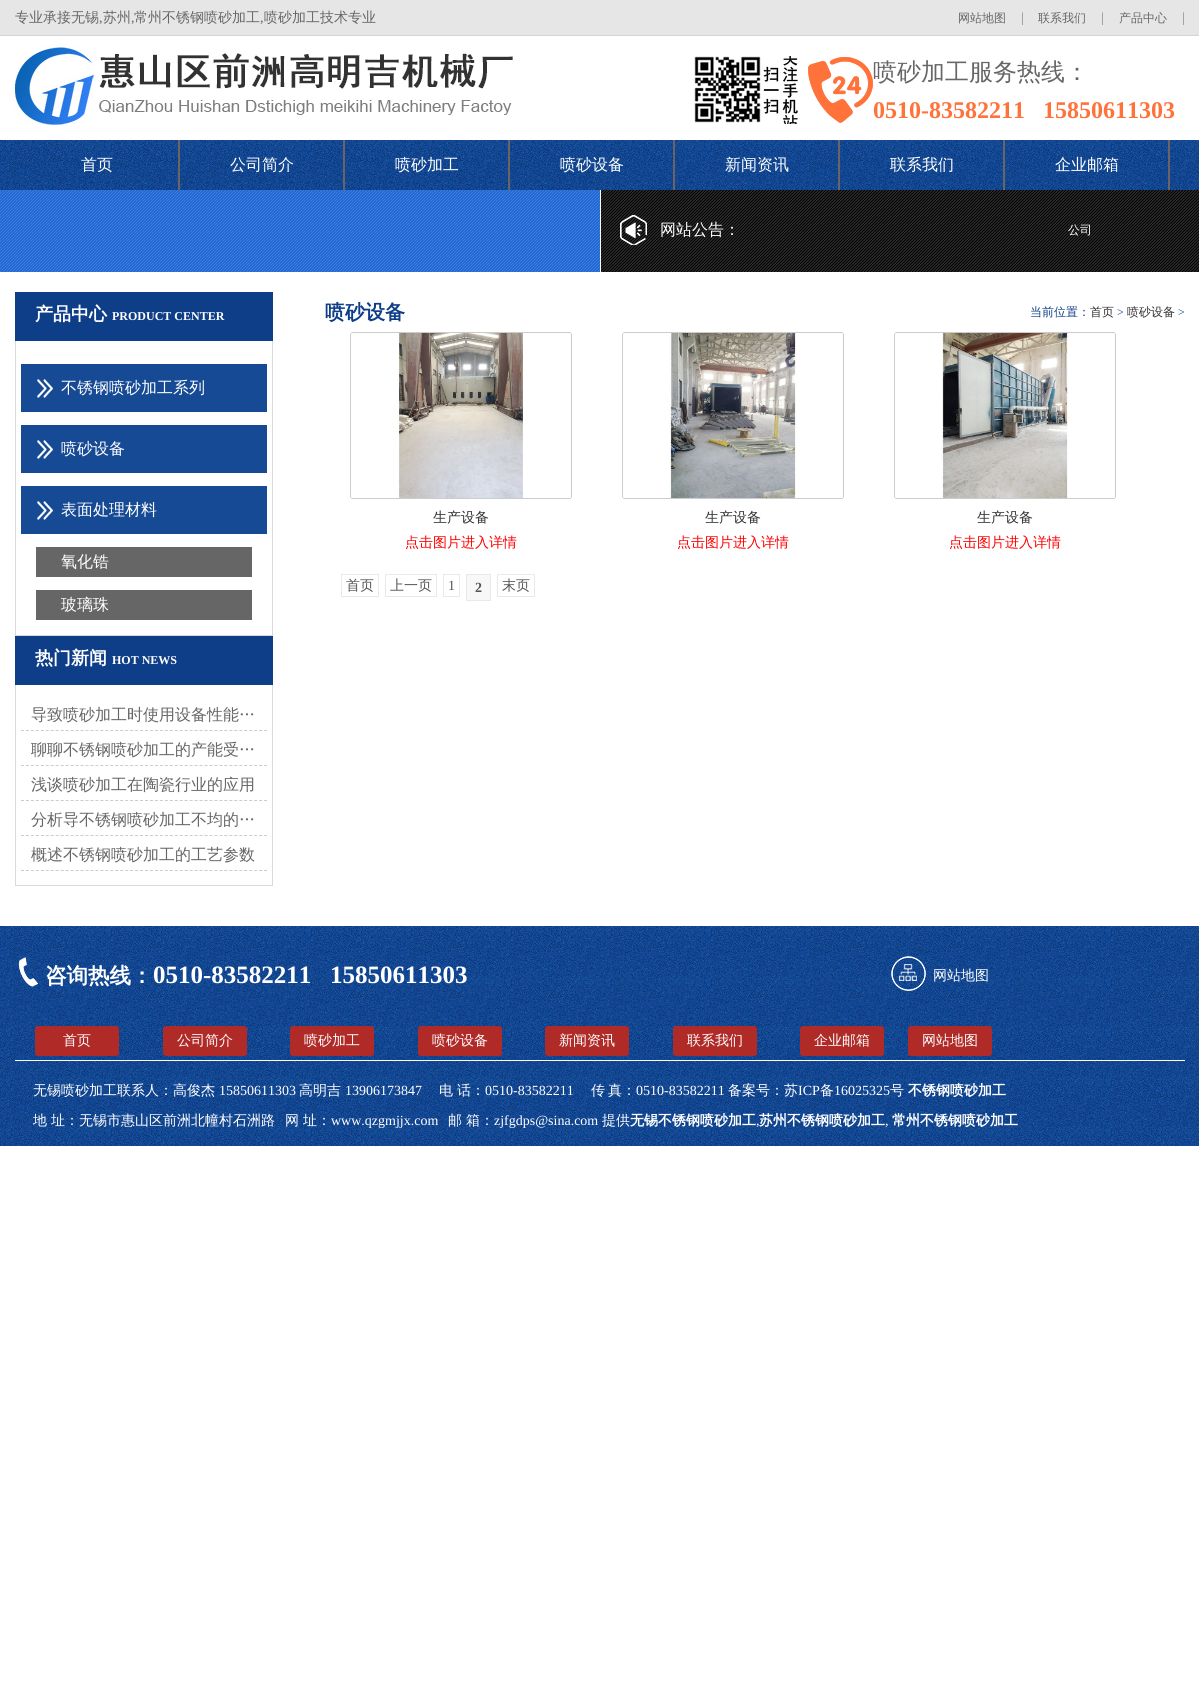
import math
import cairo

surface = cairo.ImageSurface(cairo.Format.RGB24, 1199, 1701)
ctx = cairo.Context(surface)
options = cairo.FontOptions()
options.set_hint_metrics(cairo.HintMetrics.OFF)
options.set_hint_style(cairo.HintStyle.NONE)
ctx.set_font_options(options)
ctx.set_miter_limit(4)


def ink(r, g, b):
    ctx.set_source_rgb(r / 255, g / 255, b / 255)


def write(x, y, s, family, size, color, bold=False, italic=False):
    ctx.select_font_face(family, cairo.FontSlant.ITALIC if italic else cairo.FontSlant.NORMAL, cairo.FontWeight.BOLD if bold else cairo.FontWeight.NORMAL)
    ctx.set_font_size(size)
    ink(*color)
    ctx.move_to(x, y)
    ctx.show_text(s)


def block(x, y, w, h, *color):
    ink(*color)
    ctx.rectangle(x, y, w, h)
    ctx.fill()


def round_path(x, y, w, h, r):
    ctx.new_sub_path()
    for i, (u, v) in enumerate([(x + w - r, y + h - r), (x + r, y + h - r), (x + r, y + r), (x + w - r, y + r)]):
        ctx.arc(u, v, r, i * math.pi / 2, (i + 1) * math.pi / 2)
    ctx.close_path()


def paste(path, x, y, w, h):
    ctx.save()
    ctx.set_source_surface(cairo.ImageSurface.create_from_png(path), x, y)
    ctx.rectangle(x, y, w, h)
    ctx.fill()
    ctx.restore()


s1 = dict(family="WenQuanYi Zen Hei Medium", size=14, color=(102, 102, 102))
s2 = dict(family="Liberation Serif", size=14, color=(102, 102, 102))
s3 = dict(family="WenQuanYi Zen Hei Medium", size=12, color=(102, 102, 102))
s4 = dict(family="Liberation Serif", size=14, color=(136, 136, 136))
s5 = dict(family="WenQuanYi Zen Hei Medium", size=24, color=(102, 102, 102))
s6 = dict(family="Liberation Serif", size=24, color=(255, 115, 59), bold=True)
s7 = dict(family="WenQuanYi Zen Hei Medium", size=16, color=(255, 255, 255))
s8 = dict(family="WenQuanYi Zen Hei Medium", size=12, color=(255, 255, 255))
s9 = dict(family="WenQuanYi Zen Hei", size=18, color=(255, 255, 255), bold=True)
s10 = dict(family="Liberation Serif", size=12, color=(255, 255, 255), bold=True)
s11 = dict(family="WenQuanYi Zen Hei Medium", size=16, color=(102, 102, 102))
s12 = dict(family="WenQuanYi Zen Hei", size=20, color=(14, 62, 136), bold=True)
s13 = dict(family="WenQuanYi Zen Hei Medium", size=12, color=(14, 62, 136))
s14 = dict(family="WenQuanYi Zen Hei Medium", size=12, color=(51, 51, 51))
s15 = dict(family="Liberation Serif", size=12, color=(14, 62, 136))
s16 = dict(family="WenQuanYi Zen Hei Medium", size=14, color=(51, 51, 51))
s17 = dict(family="WenQuanYi Zen Hei Medium", size=14, color=(255, 0, 0))
s18 = dict(family="WenQuanYi Zen Hei Medium", size=14, color=(85, 85, 85))
s19 = dict(family="Liberation Serif", size=14, color=(85, 85, 85))
s20 = dict(family="Liberation Serif", size=14, color=(85, 85, 85), bold=True)
s21 = dict(family="WenQuanYi Zen Hei", size=21.5, color=(255, 255, 255), bold=True)
s22 = dict(family="Liberation Serif", size=25, color=(255, 255, 255), bold=True)
s23 = dict(family="WenQuanYi Zen Hei Medium", size=14, color=(255, 255, 255))
s24 = dict(family="Liberation Serif", size=14, color=(255, 255, 255))
s25 = dict(family="WenQuanYi Zen Hei", size=14, color=(255, 255, 255), bold=True)

ink(255, 255, 255)
ctx.paint()
block(0, 0, 1199, 35, 230, 230, 230)
block(0, 35, 1199, 1, 212, 212, 212)
write(15, 22, "专业承接无锡", **s1)
write(99, 22, ",", **s2)
write(103, 22, "苏州", **s1)
write(131, 22, ",", **s2)
write(134, 22, "常州不锈钢喷砂加工", **s1)
write(260, 22, ",", **s2)
write(264, 22, "喷砂加工技术专业", **s1)
write(958, 22, "网站地图", **s3)
write(1021, 22, "|", **s4)
write(1038, 22, "联系我们", **s3)
write(1101, 22, "|", **s4)
write(1119, 22, "产品中心", **s3)
write(1182, 22, "|", **s4)
paste("pic1.png", 15, 44, 498, 86)
paste("pic2.png", 694, 56, 179, 68)
write(873, 80, "喷砂加工服务热线：", **s5)
write(873, 118, "0510-83582211   15850611303", **s6)
paste("pic3.png", 0, 140, 1199, 50)
block(178, 140, 2, 50, 108, 100, 100)
write(81, 170, "首页", **s7)
block(343, 140, 2, 50, 108, 100, 100)
write(230, 170, "公司简介", **s7)
block(508, 140, 2, 50, 108, 100, 100)
write(395, 170, "喷砂加工", **s7)
block(673, 140, 2, 50, 108, 100, 100)
write(560, 170, "喷砂设备", **s7)
block(838, 140, 2, 50, 108, 100, 100)
write(725, 170, "新闻资讯", **s7)
block(1003, 140, 2, 50, 108, 100, 100)
write(890, 170, "联系我们", **s7)
block(1168, 140, 2, 50, 108, 100, 100)
write(1055, 170, "企业邮箱", **s7)
paste("pic4.png", 0, 190, 1199, 82)
paste("pic5.png", 620, 215, 27, 30)
write(660, 235, "网站公告：", **s7)
write(1068, 234, "公司", **s8)
block(15, 292, 258, 49, 14, 62, 136)
write(35, 320, "产品中心", **s9)
write(112, 320, "PRODUCT CENTER", **s10)
block(272, 341, 1, 295, 217, 217, 217)
block(15, 635, 258, 1, 217, 217, 217)
block(15, 341, 1, 295, 217, 217, 217)
block(21, 364, 246, 48, 22, 74, 149)
paste("pic6.png", 37, 379, 16, 19)
write(61, 393, "不锈钢喷砂加工系列", **s7)
block(21, 425, 246, 48, 22, 74, 149)
paste("pic6.png", 37, 440, 16, 19)
write(61, 454, "喷砂设备", **s7)
block(21, 486, 246, 48, 22, 74, 149)
paste("pic6.png", 37, 501, 16, 19)
write(61, 515, "表面处理材料", **s7)
block(36, 547, 216, 30, 102, 102, 102)
write(61, 567, "氧化锆", **s7)
block(36, 590, 216, 30, 102, 102, 102)
write(61, 610, "玻璃珠", **s7)
block(15, 636, 258, 49, 14, 62, 136)
write(35, 664, "热门新闻", **s9)
write(112, 664, "HOT NEWS", **s10)
block(272, 685, 1, 201, 217, 217, 217)
block(15, 885, 258, 1, 217, 217, 217)
block(15, 685, 1, 201, 217, 217, 217)
ctx.new_path()
ctx.move_to(21, 730.5)
ctx.line_to(267, 730.5)
ink(204, 204, 204)
ctx.set_line_width(1)
ctx.set_dash([3, 1.96])
ctx.stroke()
write(31, 720, "导致喷砂加工时使用设备性能…", **s11)
ctx.new_path()
ctx.move_to(21, 765.5)
ctx.line_to(267, 765.5)
ink(204, 204, 204)
ctx.stroke()
write(31, 755, "聊聊不锈钢喷砂加工的产能受…", **s11)
ctx.new_path()
ctx.move_to(21, 800.5)
ctx.line_to(267, 800.5)
ink(204, 204, 204)
ctx.stroke()
write(31, 790, "浅谈喷砂加工在陶瓷行业的应用", **s11)
ctx.new_path()
ctx.move_to(21, 835.5)
ctx.line_to(267, 835.5)
ink(204, 204, 204)
ctx.stroke()
write(31, 825, "分析导不锈钢喷砂加工不均的…", **s11)
ctx.new_path()
ctx.move_to(21, 870.5)
ctx.line_to(267, 870.5)
ink(204, 204, 204)
ctx.stroke()
write(31, 860, "概述不锈钢喷砂加工的工艺参数", **s11)
write(325, 319, "喷砂设备", **s12)
write(1030, 316, "当前位置：", **s13)
write(1090, 316, "首页", **s14)
write(1117, 316, ">", **s15)
write(1127, 316, "喷砂设备", **s14)
write(1178, 316, ">", **s15)
round_path(350.5, 332.5, 221, 166, 2.5)
ink(204, 204, 204)
ctx.set_dash([])
ctx.stroke()
paste("pic7.png", 351, 333, 220, 165)
write(433, 522, "生产设备", **s16)
write(405, 547, "点击图片进入详情", **s17)
round_path(622.5, 332.5, 221, 166, 2.5)
ink(204, 204, 204)
ctx.stroke()
paste("pic8.png", 623, 333, 220, 165)
write(705, 522, "生产设备", **s16)
write(677, 547, "点击图片进入详情", **s17)
round_path(894.5, 332.5, 221, 166, 2.5)
ink(204, 204, 204)
ctx.stroke()
paste("pic9.png", 895, 333, 220, 165)
write(977, 522, "生产设备", **s16)
write(949, 547, "点击图片进入详情", **s17)
ctx.rectangle(341.5, 574.5, 37, 22)
ink(233, 233, 233)
ctx.stroke()
write(346, 590, "首页", **s18)
ctx.rectangle(385.5, 574.5, 51, 22)
ink(233, 233, 233)
ctx.stroke()
write(390, 590, "上一页", **s18)
ctx.rectangle(443.5, 574.5, 16, 22)
ink(233, 233, 233)
ctx.stroke()
write(448, 590, "1", **s19)
ink(248, 248, 248)
ctx.rectangle(466.5, 574.5, 24, 26)
ctx.fill_preserve()
ink(233, 233, 233)
ctx.stroke()
write(475, 592, "2", **s20)
ctx.rectangle(497.5, 574.5, 37, 22)
ink(233, 233, 233)
ctx.stroke()
write(502, 590, "末页", **s18)
paste("pic10.png", 0, 926, 1199, 220)
paste("pic11.png", 18, 957, 20, 30)
write(45, 983, "咨询热线：", **s21)
write(153, 983, "0510-83582211   15850611303", **s22)
paste("pic12.png", 891, 956, 35, 35)
write(933, 980, "网站地图", **s23)
block(15, 1060, 1170, 1, 255, 255, 255)
ink(176, 42, 40)
round_path(35, 1026, 84, 30, 3)
ctx.fill()
write(63, 1045, "首页", **s23)
ink(176, 42, 40)
round_path(163, 1026, 84, 30, 3)
ctx.fill()
write(177, 1045, "公司简介", **s23)
ink(176, 42, 40)
round_path(290, 1026, 84, 30, 3)
ctx.fill()
write(304, 1045, "喷砂加工", **s23)
ink(176, 42, 40)
round_path(418, 1026, 84, 30, 3)
ctx.fill()
write(432, 1045, "喷砂设备", **s23)
ink(176, 42, 40)
round_path(545, 1026, 84, 30, 3)
ctx.fill()
write(559, 1045, "新闻资讯", **s23)
ink(176, 42, 40)
round_path(673, 1026, 84, 30, 3)
ctx.fill()
write(687, 1045, "联系我们", **s23)
ink(176, 42, 40)
round_path(800, 1026, 84, 30, 3)
ctx.fill()
write(814, 1045, "企业邮箱", **s23)
ink(176, 42, 40)
round_path(908, 1026, 84, 30, 3)
ctx.fill()
write(922, 1045, "网站地图", **s23)
write(33, 1095, "无锡喷砂加工联系人：高俊杰", **s23)
write(219, 1095, "15850611303", **s24)
write(299, 1095, "高明吉", **s23)
write(345, 1095, "13906173847", **s24)
write(439, 1095, "电", **s23)
write(457, 1095, "话：", **s23)
write(485, 1095, "0510-83582211", **s24)
write(591, 1095, "传", **s23)
write(608, 1095, "真：", **s23)
write(636, 1095, "0510-83582211", **s24)
write(728, 1095, "备案号：苏", **s23)
write(798, 1095, "ICP", **s24)
write(820, 1095, "备", **s23)
write(834, 1095, "16025325", **s24)
write(890, 1095, "号", **s23)
write(908, 1095, "不锈钢喷砂加工", **s25)
write(33, 1125, "地", **s23)
write(51, 1125, "址：无锡市惠山区前洲北幢村石洲路", **s23)
write(285, 1125, "网", **s23)
write(303, 1125, "址：", **s23)
write(331, 1125, "www.qzgmjjx.com", **s24)
write(448, 1125, "邮", **s23)
write(466, 1125, "箱：", **s23)
write(494, 1125, "zjfgdps@sina.com", **s24)
write(602, 1125, "提供", **s23)
write(630, 1125, "无锡不锈钢喷砂加工", **s25)
write(756, 1125, ",", **s24)
write(759, 1125, "苏州不锈钢喷砂加工", **s25)
write(885, 1125, ",", **s24)
write(892, 1125, "常州不锈钢喷砂加工", **s25)
surface.write_to_png("screenshot.png")
